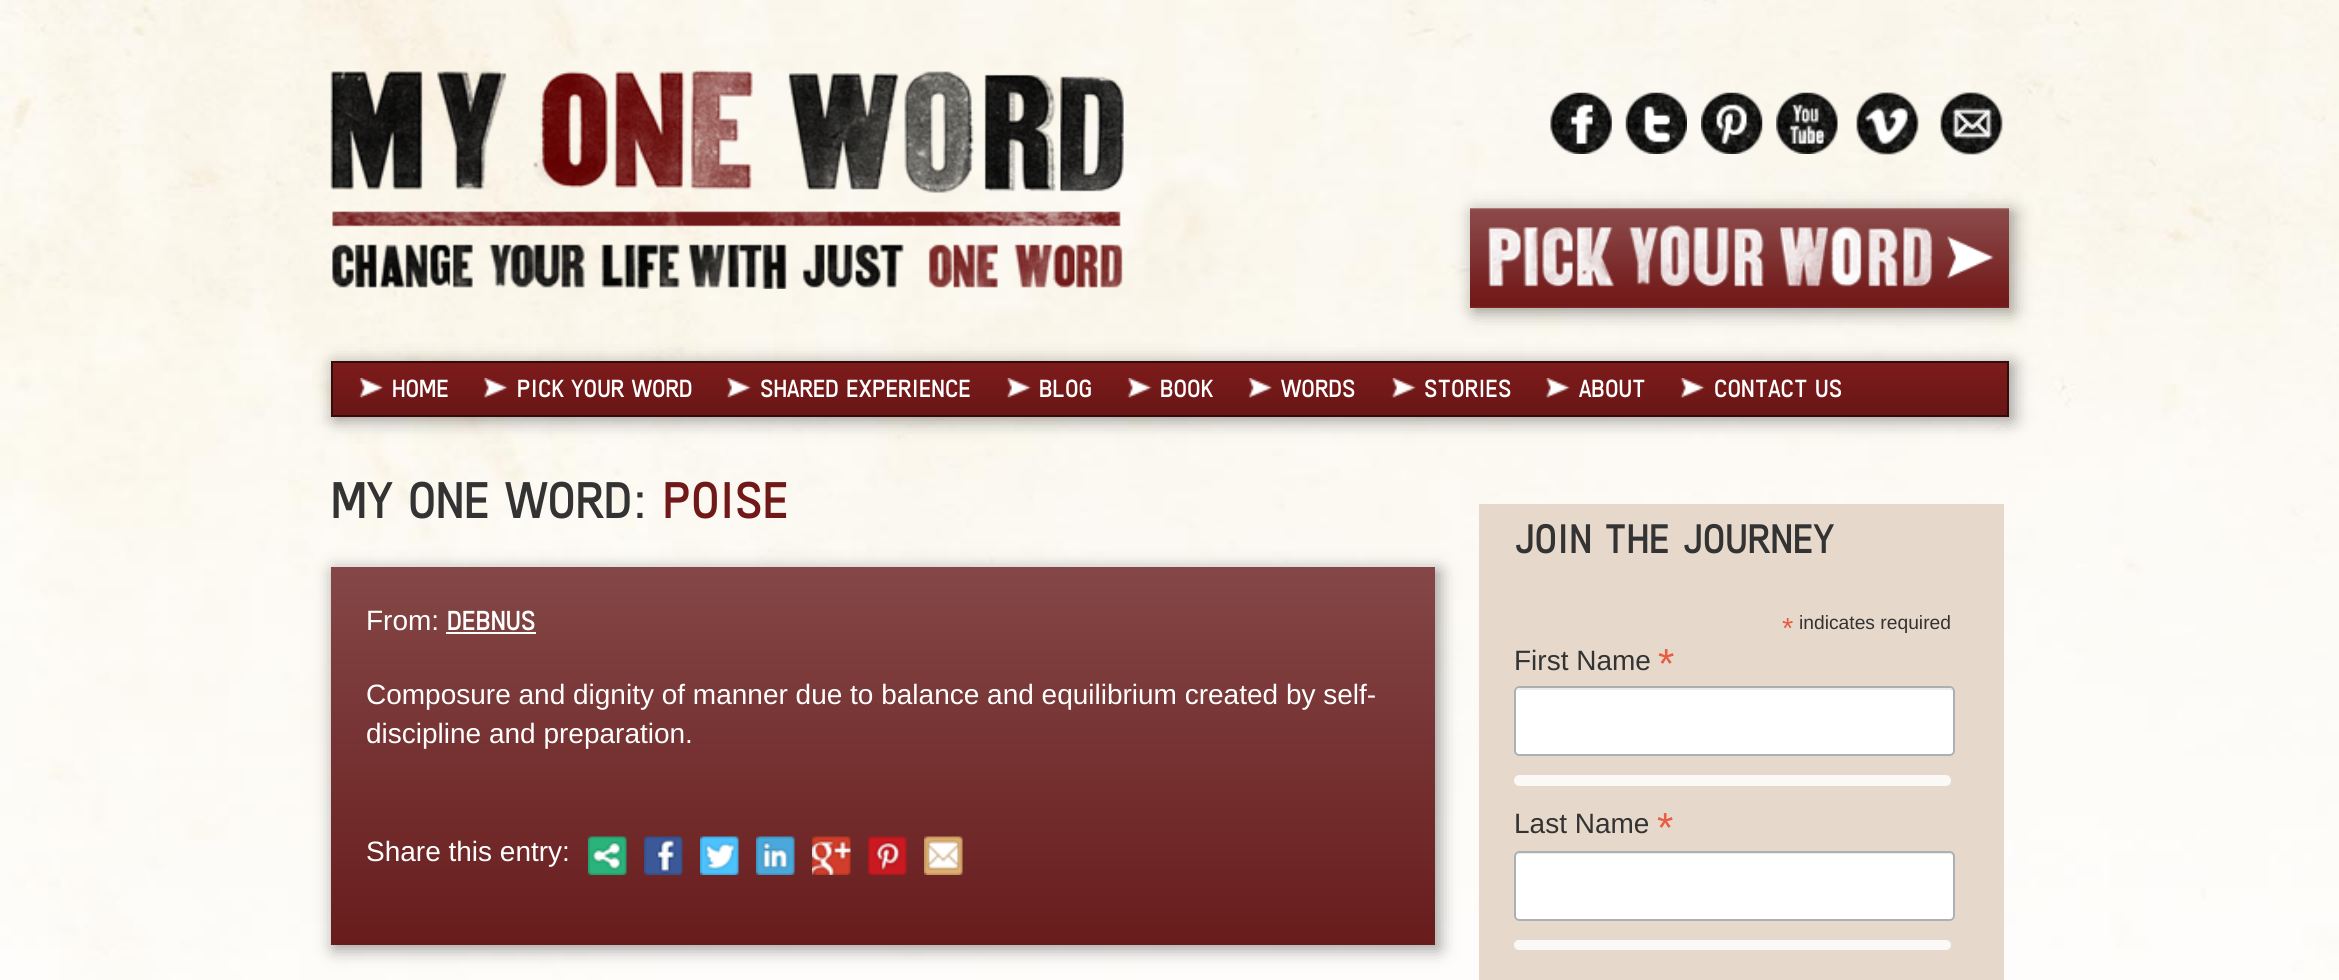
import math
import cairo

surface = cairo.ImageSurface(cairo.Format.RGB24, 2339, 980)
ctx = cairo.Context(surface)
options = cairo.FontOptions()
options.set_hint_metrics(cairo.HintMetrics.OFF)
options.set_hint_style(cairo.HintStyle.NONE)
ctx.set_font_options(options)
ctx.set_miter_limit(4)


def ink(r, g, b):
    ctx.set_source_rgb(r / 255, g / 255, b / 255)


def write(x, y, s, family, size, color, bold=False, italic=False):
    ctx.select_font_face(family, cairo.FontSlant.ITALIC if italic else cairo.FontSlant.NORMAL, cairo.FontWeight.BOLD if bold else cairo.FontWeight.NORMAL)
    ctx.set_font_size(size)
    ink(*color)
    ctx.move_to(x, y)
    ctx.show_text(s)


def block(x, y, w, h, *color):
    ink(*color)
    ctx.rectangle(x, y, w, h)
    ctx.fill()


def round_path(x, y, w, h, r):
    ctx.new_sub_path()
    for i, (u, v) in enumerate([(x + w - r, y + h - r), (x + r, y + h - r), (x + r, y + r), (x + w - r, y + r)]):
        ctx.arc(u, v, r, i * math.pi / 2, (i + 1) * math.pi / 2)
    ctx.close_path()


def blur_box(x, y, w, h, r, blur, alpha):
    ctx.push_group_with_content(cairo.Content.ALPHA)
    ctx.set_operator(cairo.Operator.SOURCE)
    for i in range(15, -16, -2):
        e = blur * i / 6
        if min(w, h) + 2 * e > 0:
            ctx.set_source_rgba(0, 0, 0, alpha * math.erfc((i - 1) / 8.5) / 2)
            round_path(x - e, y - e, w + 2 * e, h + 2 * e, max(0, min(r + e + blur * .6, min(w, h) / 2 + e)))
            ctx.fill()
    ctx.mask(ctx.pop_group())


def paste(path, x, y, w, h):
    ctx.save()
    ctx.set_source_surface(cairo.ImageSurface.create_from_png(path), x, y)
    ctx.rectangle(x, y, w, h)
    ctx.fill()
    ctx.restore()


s1 = dict(family="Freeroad", size=25.25, color=(255, 255, 255))
s2 = dict(family="Freeroad", size=52.5, color=(51, 51, 51))
s3 = dict(family="Freeroad", size=52.5, color=(113, 24, 24))
s4 = dict(family="Liberation Sans", size=28, color=(255, 255, 255))
s5 = dict(family="Freeroad", size=28, color=(255, 255, 255))
s6 = dict(family="Freeroad", size=42, color=(51, 51, 51))
s7 = dict(family="Liberation Sans", size=29, color=(232, 92, 65))
s8 = dict(family="Liberation Sans", size=19.25, color=(51, 51, 51))
s9 = dict(family="Liberation Sans", size=28, color=(51, 51, 51))
s10 = dict(family="Liberation Sans", size=42, color=(232, 92, 65))

ink(255, 255, 255)
ctx.paint()
paste("pic1.png", 0, 0, 2339, 980)
paste("pic2.png", 330, 70, 794, 219)
paste("pic3.png", 1550, 92, 62, 62)
paste("pic4.png", 1625, 92, 62, 62)
paste("pic5.png", 1701, 92, 62, 62)
paste("pic6.png", 1776, 92, 62, 62)
paste("pic7.png", 1856, 92, 63, 63)
paste("pic8.png", 1940, 92, 63, 63)
ctx.save()
ctx.set_fill_rule(cairo.FillRule.EVEN_ODD)
ctx.new_path()
ctx.move_to(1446, 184)
ctx.line_to(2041, 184)
ctx.line_to(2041, 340)
ctx.line_to(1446, 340)
ctx.close_path()
ctx.move_to(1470, 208)
ctx.line_to(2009, 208)
ctx.line_to(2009, 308)
ctx.line_to(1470, 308)
ctx.close_path()
ctx.clip()
ink(0, 0, 0)
blur_box(1474, 212, 539, 100, 0, 9, 0.4)
ctx.restore()
paste("pic9.png", 1470, 208, 539, 100)
ink(0, 0, 0)
blur_box(334, 364, 1679, 56, 0, 9, 0.4)
gradient = cairo.LinearGradient(1170, 362, 1170, 415)
gradient.add_color_stop_rgba(0, 0.494, 0.106, 0.106, 1)
gradient.add_color_stop_rgba(1, 0.412, 0.086, 0.086, 1)
ctx.set_source(gradient)
ctx.rectangle(333, 363, 1674, 52)
ctx.fill()
ctx.rectangle(332, 362, 1676, 54)
ink(54, 11, 11)
ctx.stroke()
paste("pic10.png", 359, 378, 25, 20)
write(392, 397, "HOME", **s1)
paste("pic11.png", 483, 378, 25, 20)
write(517, 397, "PICK YOUR WORD", **s1)
paste("pic12.png", 726, 378, 25, 20)
write(760, 397, "SHARED EXPERIENCE", **s1)
paste("pic13.png", 1006, 378, 25, 20)
write(1039, 397, "BLOG", **s1)
paste("pic14.png", 1127, 378, 25, 20)
write(1160, 397, "BOOK", **s1)
paste("pic15.png", 1248, 378, 25, 20)
write(1281, 397, "WORDS", **s1)
paste("pic12.png", 1391, 378, 25, 20)
write(1424, 397, "STORIES", **s1)
paste("pic16.png", 1545, 378, 25, 20)
write(1579, 397, "ABOUT", **s1)
paste("pic14.png", 1680, 378, 25, 20)
write(1714, 397, "CONTACT US", **s1)
write(331, 518, "MY ONE WORD:", **s2)
write(663, 518, "POISE", **s3)
ink(0, 0, 0)
blur_box(334, 571, 1105, 378, 0, 9, 0.4)
gradient = cairo.LinearGradient(883, 567, 883, 945)
gradient.add_color_stop_rgba(0, 0.518, 0.278, 0.278, 1)
gradient.add_color_stop_rgba(1, 0.408, 0.11, 0.11, 1)
ctx.set_source(gradient)
ctx.rectangle(331, 567, 1104, 378)
ctx.fill()
write(366, 630, "From:", **s4)
write(447, 630, "DEBNUS", **s5)
block(446, 632, 90, 2, 255, 255, 255)
write(366, 704, "Composure and dignity of manner due to balance and equilibrium created by self-", **s4)
write(366, 743, "discipline and preparation.", **s4)
write(366, 861, "Share this entry:", **s4)
paste("pic17.png", 588, 836, 39, 39)
paste("pic18.png", 644, 836, 39, 39)
paste("pic19.png", 700, 836, 39, 39)
paste("pic20.png", 756, 836, 39, 39)
paste("pic21.png", 812, 836, 39, 39)
paste("pic22.png", 868, 836, 39, 39)
paste("pic23.png", 924, 836, 39, 39)
block(1479, 504, 525, 476, 230, 217, 203)
write(1514, 553, "JOIN THE JOURNEY", **s6)
write(1782, 638, "*", **s7)
write(1799, 629, "indicates required", **s8)
write(1514, 670, "First Name", **s9)
write(1658, 678, "*", **s10)
ink(255, 255, 255)
round_path(1514, 686, 441, 70, 5)
ctx.fill()
ink(236, 236, 236)
ctx.new_path()
ctx.move_to(1519, 690)
ctx.line_to(1950, 690)
ctx.curve_to(1951, 690, 1953, 691, 1953, 693)
ctx.curve_to(1953, 690, 1952, 688, 1949, 688)
ctx.line_to(1520, 688)
ctx.line_to(1518, 689)
ctx.line_to(1517, 690)
ctx.line_to(1516, 693)
ctx.curve_to(1516, 691, 1517, 690, 1519, 690)
ctx.close_path()
ctx.fill()
round_path(1515, 687, 439, 68, 4)
ink(171, 176, 178)
ctx.stroke()
ink(251, 249, 247)
round_path(1514, 775, 437, 11, 5.5)
ctx.fill()
write(1514, 833, "Last Name", **s9)
write(1657, 842, "*", **s10)
ink(255, 255, 255)
round_path(1514, 851, 441, 70, 5)
ctx.fill()
ink(236, 236, 236)
ctx.new_path()
ctx.move_to(1519, 854)
ctx.line_to(1950, 854)
ctx.curve_to(1951, 854, 1953, 856, 1953, 858)
ctx.line_to(1953, 856)
ctx.curve_to(1953, 854, 1951, 852, 1949, 852)
ctx.line_to(1520, 852)
ctx.curve_to(1518, 852, 1516, 854, 1516, 856)
ctx.line_to(1516, 858)
ctx.curve_to(1516, 856, 1517, 854, 1519, 854)
ctx.close_path()
ctx.fill()
round_path(1515, 852, 439, 68, 4)
ink(171, 176, 178)
ctx.stroke()
ink(251, 249, 247)
round_path(1514, 940, 437, 10, 5)
ctx.fill()
surface.write_to_png("screenshot.png")
